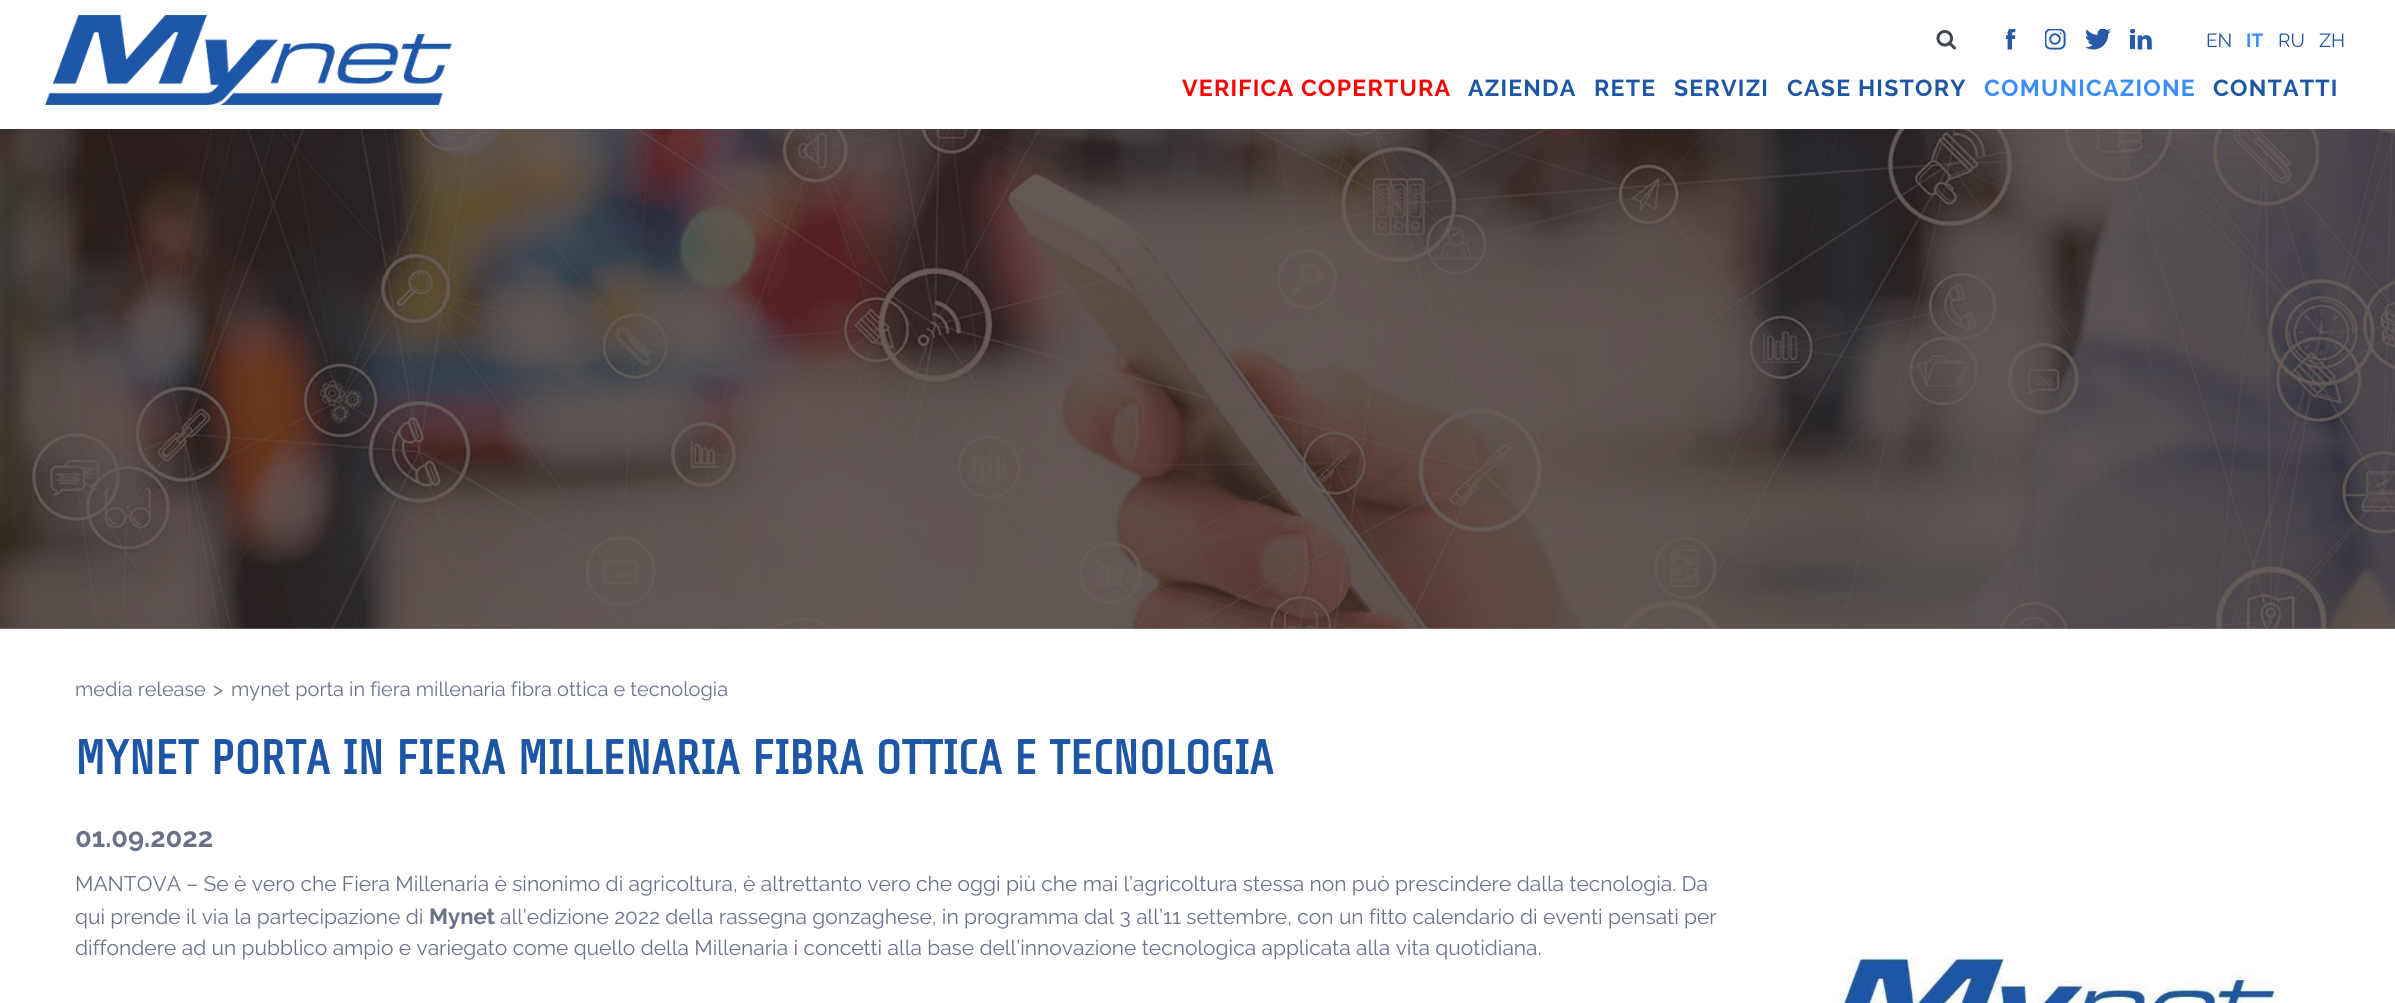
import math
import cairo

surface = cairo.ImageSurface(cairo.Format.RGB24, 2395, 1003)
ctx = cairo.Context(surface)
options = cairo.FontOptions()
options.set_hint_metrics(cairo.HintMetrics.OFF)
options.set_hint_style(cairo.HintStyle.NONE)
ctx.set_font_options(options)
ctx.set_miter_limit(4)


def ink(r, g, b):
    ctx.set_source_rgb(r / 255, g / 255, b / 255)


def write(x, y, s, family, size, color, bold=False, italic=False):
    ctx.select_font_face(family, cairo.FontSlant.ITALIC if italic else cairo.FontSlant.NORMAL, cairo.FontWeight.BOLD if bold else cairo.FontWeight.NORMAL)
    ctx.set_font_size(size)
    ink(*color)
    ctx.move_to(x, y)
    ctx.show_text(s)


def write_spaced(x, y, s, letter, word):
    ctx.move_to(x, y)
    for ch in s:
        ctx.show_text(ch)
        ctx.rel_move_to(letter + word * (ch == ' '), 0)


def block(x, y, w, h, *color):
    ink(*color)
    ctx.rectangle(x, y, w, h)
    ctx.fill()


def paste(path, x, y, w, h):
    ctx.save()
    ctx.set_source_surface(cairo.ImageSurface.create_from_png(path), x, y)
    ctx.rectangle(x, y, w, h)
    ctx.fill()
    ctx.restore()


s1 = dict(family="Raleway Thin", size=19, color=(30, 86, 166))
s2 = dict(family="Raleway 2 Thin", size=19, color=(58, 140, 255))
s3 = dict(family="Raleway Thin", size=19.95, color=(105, 114, 135))
s4 = dict(family="Share Tech", size=48, color=(30, 86, 166), bold=True)
s5 = dict(family="Raleway 2 Thin", size=27.25, color=(105, 114, 135))
s6 = dict(family="Raleway Thin", size=21, color=(105, 114, 135))
s7 = dict(family="Raleway 2 Thin", size=22, color=(105, 114, 135))

ink(255, 255, 255)
ctx.paint()
block(0, 628, 2395, 1, 143, 133, 129)
paste("pic1.png", 45, 15, 407, 90)
paste("pic2.png", 1936, 30, 20, 20)
paste("pic3.png", 2006, 29, 10, 21)
paste("pic4.png", 2045, 29, 21, 21)
paste("pic5.png", 2085, 29, 26, 21)
paste("pic6.png", 2130, 29, 22, 21)
write(2206, 47, "EN", **s1)
write(2246, 47, "IT", **s2)
write(2278, 47, "RU", **s1)
write(2319, 47, "ZH", **s1)
ctx.select_font_face("Raleway 2 Thin")
ctx.set_font_size(23.1)
ink(255, 0, 0)
write_spaced(1182, 96, "VERIFICA COPERTURA", 1.2, 0)
ink(30, 86, 166)
write_spaced(1468, 96, "AZIENDA", 1.2, 0)
write_spaced(1594, 96, "RETE", 1.2, 0)
write_spaced(1674, 96, "SERVIZI", 1.2, 0)
write_spaced(1787, 96, "CASE HISTORY", 1.2, 0)
ink(58, 140, 255)
write_spaced(1984, 96, "COMUNICAZIONE", 1.2, 0)
ink(30, 86, 166)
write_spaced(2213, 96, "CONTATTI", 1.2, 0)
paste("pic7.png", 0, 129, 2395, 500)
write(75, 696, "media release", **s3)
write(213, 696, ">", **s3)
write(231, 696, "mynet porta in fiera millenaria fibra ottica e tecnologia", **s3)
write(75, 774, "MYNET PORTA IN FIERA MILLENARIA FIBRA OTTICA E TECNOLOGIA", **s4)
write(75, 847, "01.09.2022", **s5)
write(75, 891, "MANTOVA – Se è vero che Fiera Millenaria è sinonimo di agricoltura, è altrettanto vero che oggi più che mai l’agricoltura stessa non può prescindere dalla tecnologia. Da", **s6)
write(75, 924, "qui prende il via la partecipazione di", **s6)
write(429, 924, "Mynet", **s7)
write(500, 924, "all’edizione 2022 della rassegna gonzaghese, in programma dal 3 all’11 settembre, con un fitto calendario di eventi pensati per", **s6)
write(75, 955, "diffondere ad un pubblico ampio e variegato come quello della Millenaria i concetti alla base dell’innovazione tecnologica applicata alla vita quotidiana.", **s6)
paste("pic8.png", 1834, 956, 445, 47)
surface.write_to_png("screenshot.png")
